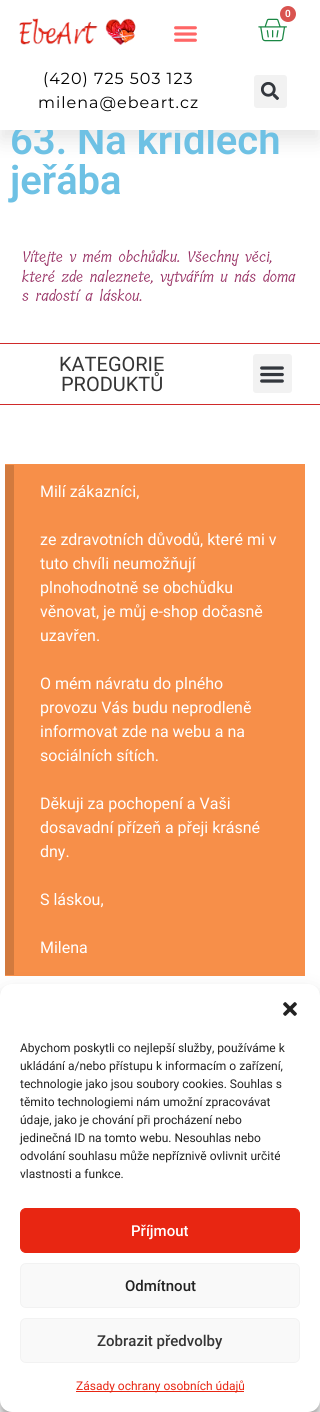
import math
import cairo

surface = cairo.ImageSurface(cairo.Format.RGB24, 320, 1412)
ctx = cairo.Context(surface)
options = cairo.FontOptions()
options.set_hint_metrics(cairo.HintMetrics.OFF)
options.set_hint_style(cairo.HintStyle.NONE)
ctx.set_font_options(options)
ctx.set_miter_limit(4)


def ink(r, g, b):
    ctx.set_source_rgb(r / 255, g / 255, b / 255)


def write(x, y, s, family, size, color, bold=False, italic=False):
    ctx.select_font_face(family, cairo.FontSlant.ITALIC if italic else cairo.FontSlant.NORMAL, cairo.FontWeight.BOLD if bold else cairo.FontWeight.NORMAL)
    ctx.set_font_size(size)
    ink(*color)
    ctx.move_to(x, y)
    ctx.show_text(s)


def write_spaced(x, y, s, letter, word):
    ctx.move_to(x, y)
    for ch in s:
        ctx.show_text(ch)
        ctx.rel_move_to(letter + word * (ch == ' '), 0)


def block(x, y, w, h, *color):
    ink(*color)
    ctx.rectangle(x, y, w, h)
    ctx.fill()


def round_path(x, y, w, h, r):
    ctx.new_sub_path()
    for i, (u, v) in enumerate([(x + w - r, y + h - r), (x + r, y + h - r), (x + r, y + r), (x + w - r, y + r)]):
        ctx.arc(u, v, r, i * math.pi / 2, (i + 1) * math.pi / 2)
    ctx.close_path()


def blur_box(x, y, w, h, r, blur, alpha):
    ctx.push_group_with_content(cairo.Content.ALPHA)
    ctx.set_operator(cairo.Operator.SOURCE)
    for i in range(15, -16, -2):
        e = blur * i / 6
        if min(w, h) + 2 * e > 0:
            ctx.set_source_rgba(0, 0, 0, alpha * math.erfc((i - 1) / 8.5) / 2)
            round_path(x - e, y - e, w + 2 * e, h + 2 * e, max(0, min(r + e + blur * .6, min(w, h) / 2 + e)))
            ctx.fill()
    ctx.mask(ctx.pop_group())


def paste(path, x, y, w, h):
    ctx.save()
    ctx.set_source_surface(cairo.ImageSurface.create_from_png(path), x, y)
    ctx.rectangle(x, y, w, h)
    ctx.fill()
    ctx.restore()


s1 = dict(family="Roboto SemiBold", size=40, color=(110, 193, 228))
s2 = dict(family="Roboto SemiBold", size=10, color=(255, 255, 255))
s3 = dict(family="Tillana", size=15, color=(153, 51, 102))
s4 = dict(family="Roboto", size=20, color=(53, 53, 53))
s5 = dict(family="Roboto", size=16, color=(255, 255, 255))
s6 = dict(family="Roboto", size=12, color=(34, 34, 34))
s7 = dict(family="Roboto Medium", size=15, color=(255, 255, 255))
s8 = dict(family="Roboto Medium", size=15, color=(34, 34, 34))
s9 = dict(family="Roboto Medium", size=15, color=(53, 53, 53))
s10 = dict(family="Roboto", size=12, color=(232, 38, 18))

ink(255, 255, 255)
ctx.paint()
ink(0, 0, 0)
blur_box(0, 10, 320, 130, 0, 10, 0.1)
write(10, 154, "63. Na křídlech", **s1)
block(0, 0, 320, 130, 255, 255, 255)
paste("pic1.png", 258, 18, 29, 24)
ink(217, 83, 79)
ctx.arc(288, 14, 8, 0, 2 * math.pi)
ctx.fill()
write(285, 17, "0", **s2)
paste("pic2.png", 19, 18, 117, 27)
paste("pic3.png", 174, 26, 23, 16)
ctx.select_font_face("Montserrat")
ctx.set_font_size(16)
ink(0, 0, 0)
write_spaced(43, 84, "(420) 725 503 123", 1, 0)
write_spaced(38, 108, "milena@ebeart.cz", 1, 0)
ink(242, 242, 242)
round_path(254, 75, 33, 33, 3)
ctx.fill()
paste("pic4.png", 261, 82, 18, 18)
write(10, 194, "jeřába", **s1)
write(22, 262, "Vítejte v mém obchůdku. Všechny věci,", **s3)
write(22, 282, "které zde naleznete, vytvářím u nás doma", **s3)
write(22, 301, "s radostí a láskou.", **s3)
block(0, 343, 320, 1, 208, 42, 42)
block(0, 404, 320, 1, 208, 42, 42)
write(59, 371, "KATEGORIE", **s4)
write(61, 391, "PRODUKTŮ", **s4)
ink(242, 242, 242)
round_path(253, 354, 39, 39, 3)
ctx.fill()
paste("pic5.png", 260, 366, 24, 17)
block(5, 464, 300, 512, 247, 143, 73)
block(5, 465, 9, 510, 210, 122, 62)
write(40, 497, "Milí zákazníci,", **s5)
write(40, 545, "ze zdravotních důvodů, které mi v", **s5)
write(40, 569, "tuto chvíli neumožňují", **s5)
write(40, 593, "plnohodnotně se obchůdku", **s5)
write(40, 617, "věnovat, je můj e-shop dočasně", **s5)
write(40, 641, "uzavřen.", **s5)
write(40, 689, "O mém návratu do plného", **s5)
write(40, 713, "provozu Vás budu neprodleně", **s5)
write(40, 737, "informovat zde na webu a na", **s5)
write(40, 761, "sociálních sítích.", **s5)
write(40, 809, "Děkuji za pochopení a Vaši", **s5)
write(40, 833, "dosavadní přízeň a přeji krásné", **s5)
write(40, 857, "dny.", **s5)
write(40, 905, "S láskou,", **s5)
write(40, 953, "Milena", **s5)
ink(0, 0, 0)
blur_box(0, 990, 320, 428, 12, 3, 0.23)
blur_box(0, 994, 320, 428, 12, 10, 0.19)
ink(255, 255, 255)
round_path(0, 984, 320, 428, 12)
ctx.fill()
paste("pic6.png", 283, 1002, 14, 14)
write(20, 1052, "Abychom poskytli co nejlepší služby, používáme k", **s6)
write(20, 1070, "ukládání a/nebo přístupu k informacím o zařízení,", **s6)
write(20, 1088, "technologie jako jsou soubory cookies. Souhlas s", **s6)
write(20, 1106, "těmito technologiemi nám umožní zpracovávat", **s6)
write(20, 1124, "údaje, jako je chování při procházení nebo", **s6)
write(20, 1142, "jedinečná ID na tomto webu. Nesouhlas nebo", **s6)
write(20, 1160, "odvolání souhlasu může nepříznivě ovlivnit určité", **s6)
write(20, 1178, "vlastnosti a funkce.", **s6)
ink(232, 38, 18)
round_path(20.5, 1208.5, 279, 44, 5.5)
ctx.fill_preserve()
ctx.set_line_width(1)
ctx.stroke()
write(131, 1236, "Příjmout", **s7)
ink(249, 249, 249)
round_path(20.5, 1263.5, 279, 44, 5.5)
ctx.fill_preserve()
ink(242, 242, 242)
ctx.stroke()
write(125, 1291, "Odmítnout", **s8)
ink(249, 249, 249)
round_path(20.5, 1318.5, 279, 44, 5.5)
ctx.fill_preserve()
ink(242, 242, 242)
ctx.stroke()
write(97, 1346, "Zobrazit předvolby", **s9)
block(76, 1391, 168, 1, 232, 38, 18)
write(76, 1390, "Zásady ochrany osobních údajů", **s10)
surface.write_to_png("screenshot.png")
